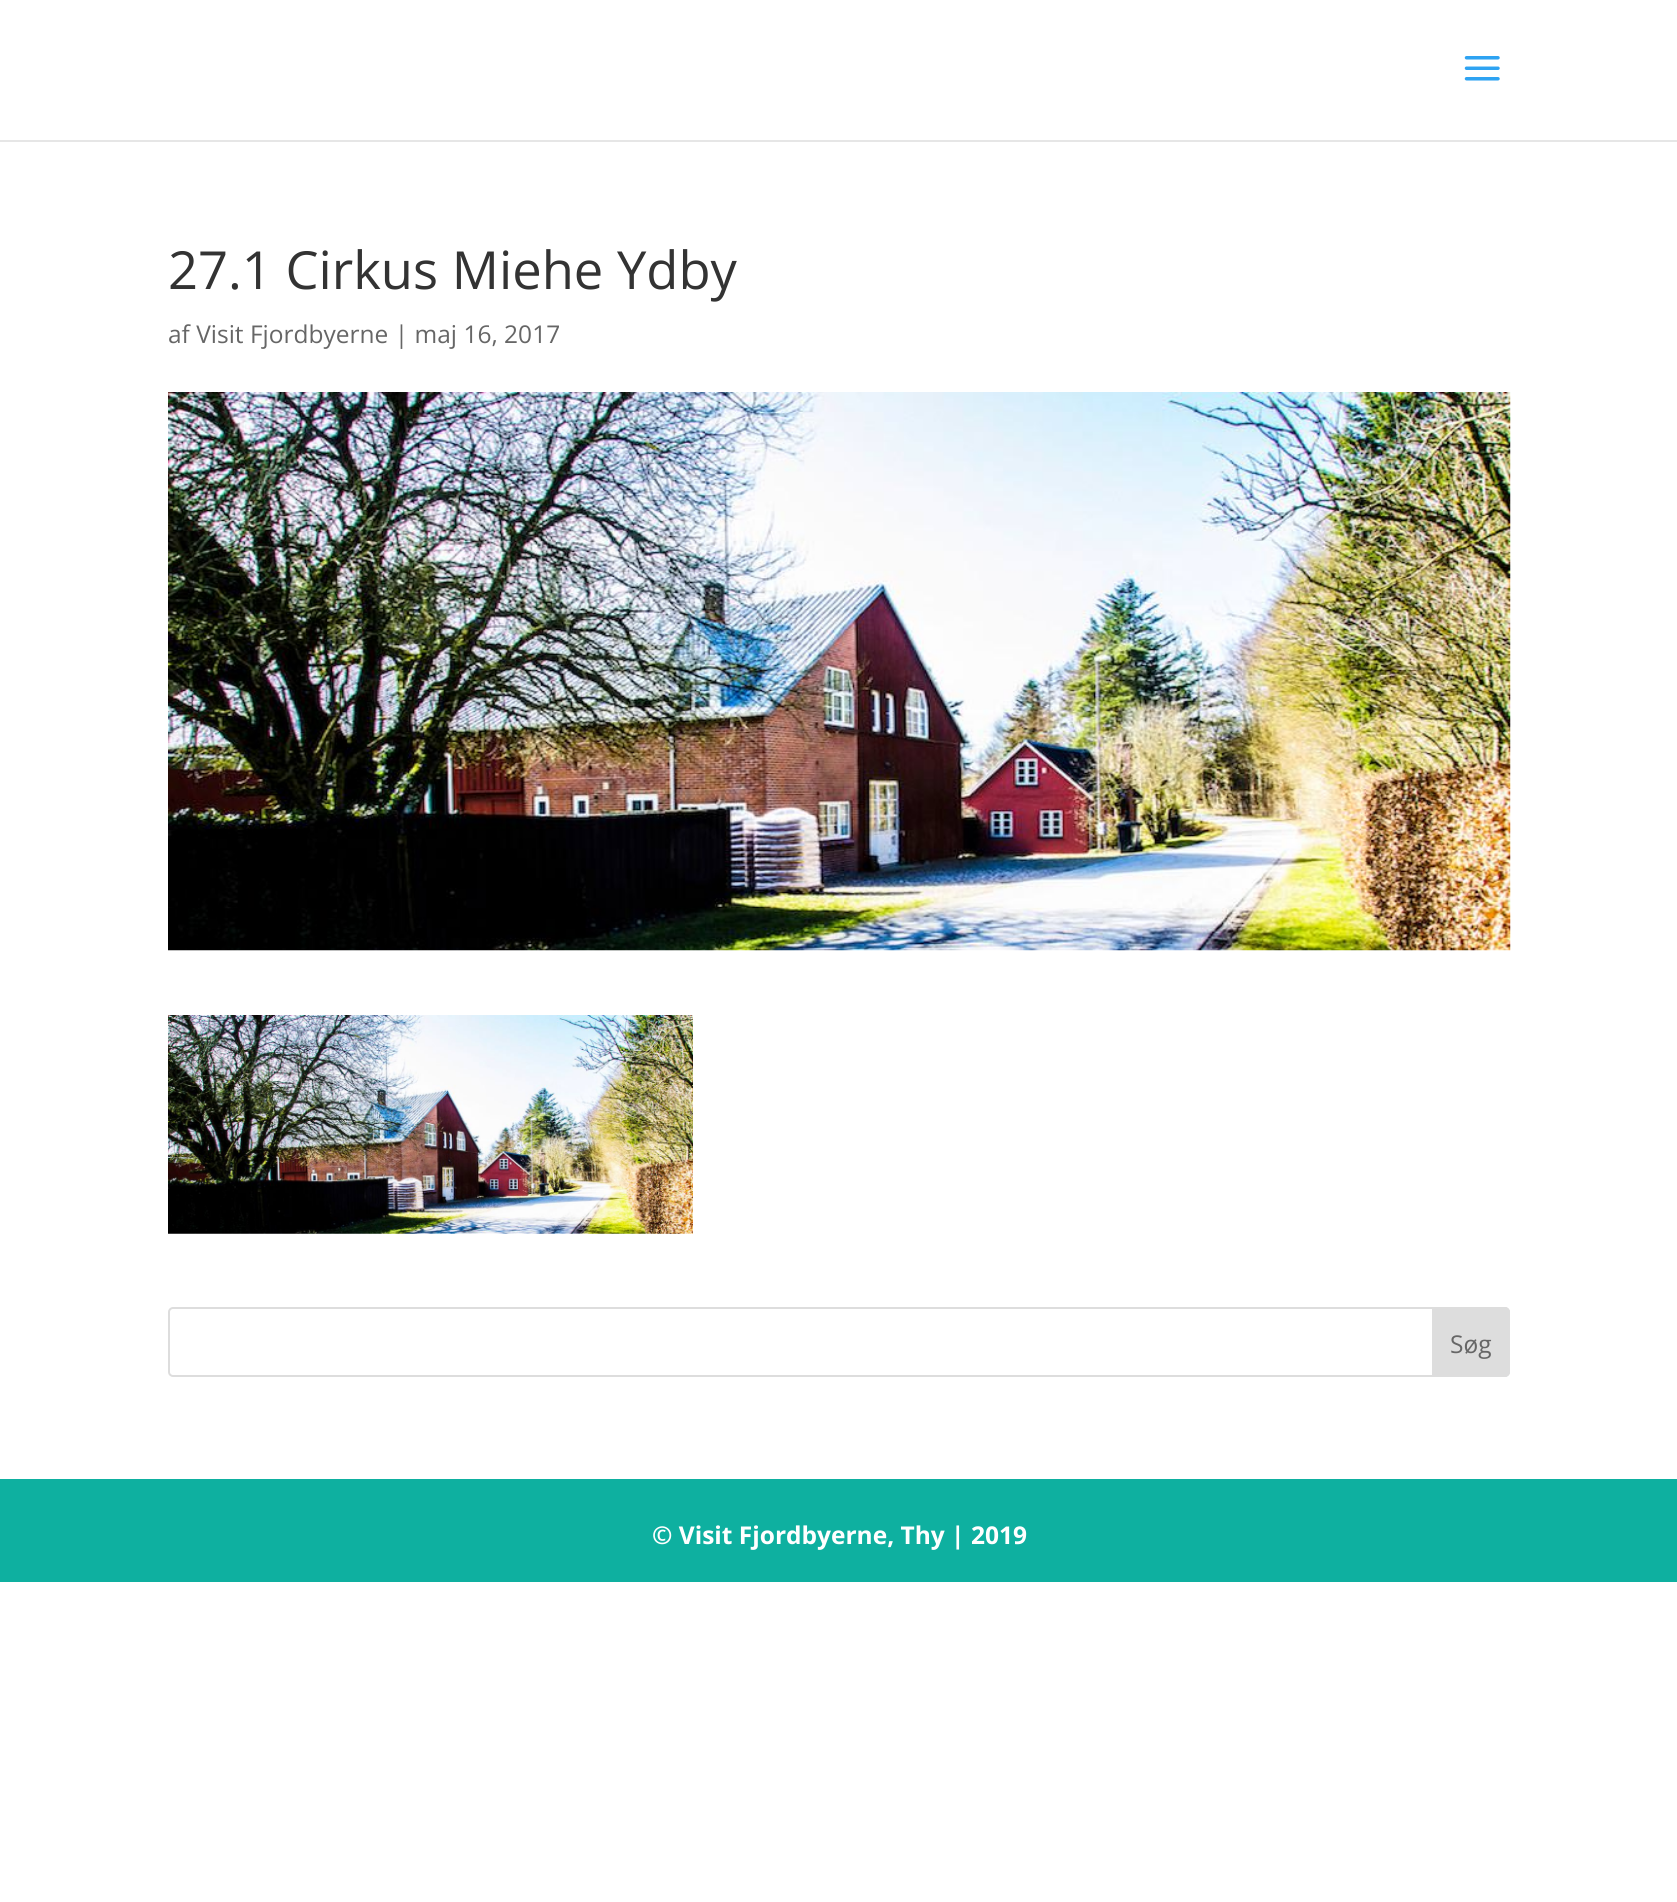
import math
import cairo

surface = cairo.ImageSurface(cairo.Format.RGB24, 1677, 1902)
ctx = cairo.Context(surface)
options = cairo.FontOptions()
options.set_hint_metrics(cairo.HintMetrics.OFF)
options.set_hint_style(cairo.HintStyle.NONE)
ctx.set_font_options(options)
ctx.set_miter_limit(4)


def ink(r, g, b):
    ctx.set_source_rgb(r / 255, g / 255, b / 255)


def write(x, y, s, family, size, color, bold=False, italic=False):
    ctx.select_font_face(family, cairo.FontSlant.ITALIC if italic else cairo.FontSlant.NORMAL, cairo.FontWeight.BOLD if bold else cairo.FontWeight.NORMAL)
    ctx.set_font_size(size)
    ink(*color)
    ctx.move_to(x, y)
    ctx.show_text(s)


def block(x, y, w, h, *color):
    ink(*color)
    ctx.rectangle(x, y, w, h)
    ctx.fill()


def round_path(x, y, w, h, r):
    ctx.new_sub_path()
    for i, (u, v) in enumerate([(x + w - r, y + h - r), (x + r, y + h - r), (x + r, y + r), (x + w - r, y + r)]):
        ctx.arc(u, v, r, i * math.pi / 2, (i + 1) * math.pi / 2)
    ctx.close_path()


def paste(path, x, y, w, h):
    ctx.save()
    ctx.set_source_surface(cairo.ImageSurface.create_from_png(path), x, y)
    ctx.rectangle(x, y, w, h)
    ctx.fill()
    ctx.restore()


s1 = dict(family="Open Sans", size=52.5, color=(51, 51, 51))
s2 = dict(family="Open Sans", size=24.5, color=(102, 102, 102))
s3 = dict(family="Open Sans", size=24.5, color=(255, 255, 255), bold=True)

ink(255, 255, 255)
ctx.paint()
block(0, 140, 1677, 2, 230, 230, 230)
paste("pic1.png", 1464, 56, 36, 25)
write(168, 289, "27.1 Cirkus Miehe Ydby", **s1)
write(168, 343, "af Visit Fjordbyerne | maj 16, 2017", **s2)
paste("pic2.png", 168, 392, 1343, 559)
paste("pic3.png", 168, 1015, 525, 219)
round_path(169, 1308, 1340, 68, 4)
ink(221, 221, 221)
ctx.stroke()
ctx.new_path()
ctx.move_to(1433, 1308)
ctx.line_to(1505, 1308)
ctx.curve_to(1507, 1308, 1509, 1310, 1509, 1312)
ctx.line_to(1509, 1372)
ctx.curve_to(1509, 1374, 1507, 1376, 1505, 1376)
ctx.line_to(1433, 1376)
ctx.close_path()
ctx.fill_preserve()
ctx.stroke()
write(1450, 1353, "Søg", **s2)
block(0, 1479, 1677, 103, 14, 176, 160)
write(652, 1544, "© Visit Fjordbyerne, Thy | 2019", **s3)
surface.write_to_png("screenshot.png")
